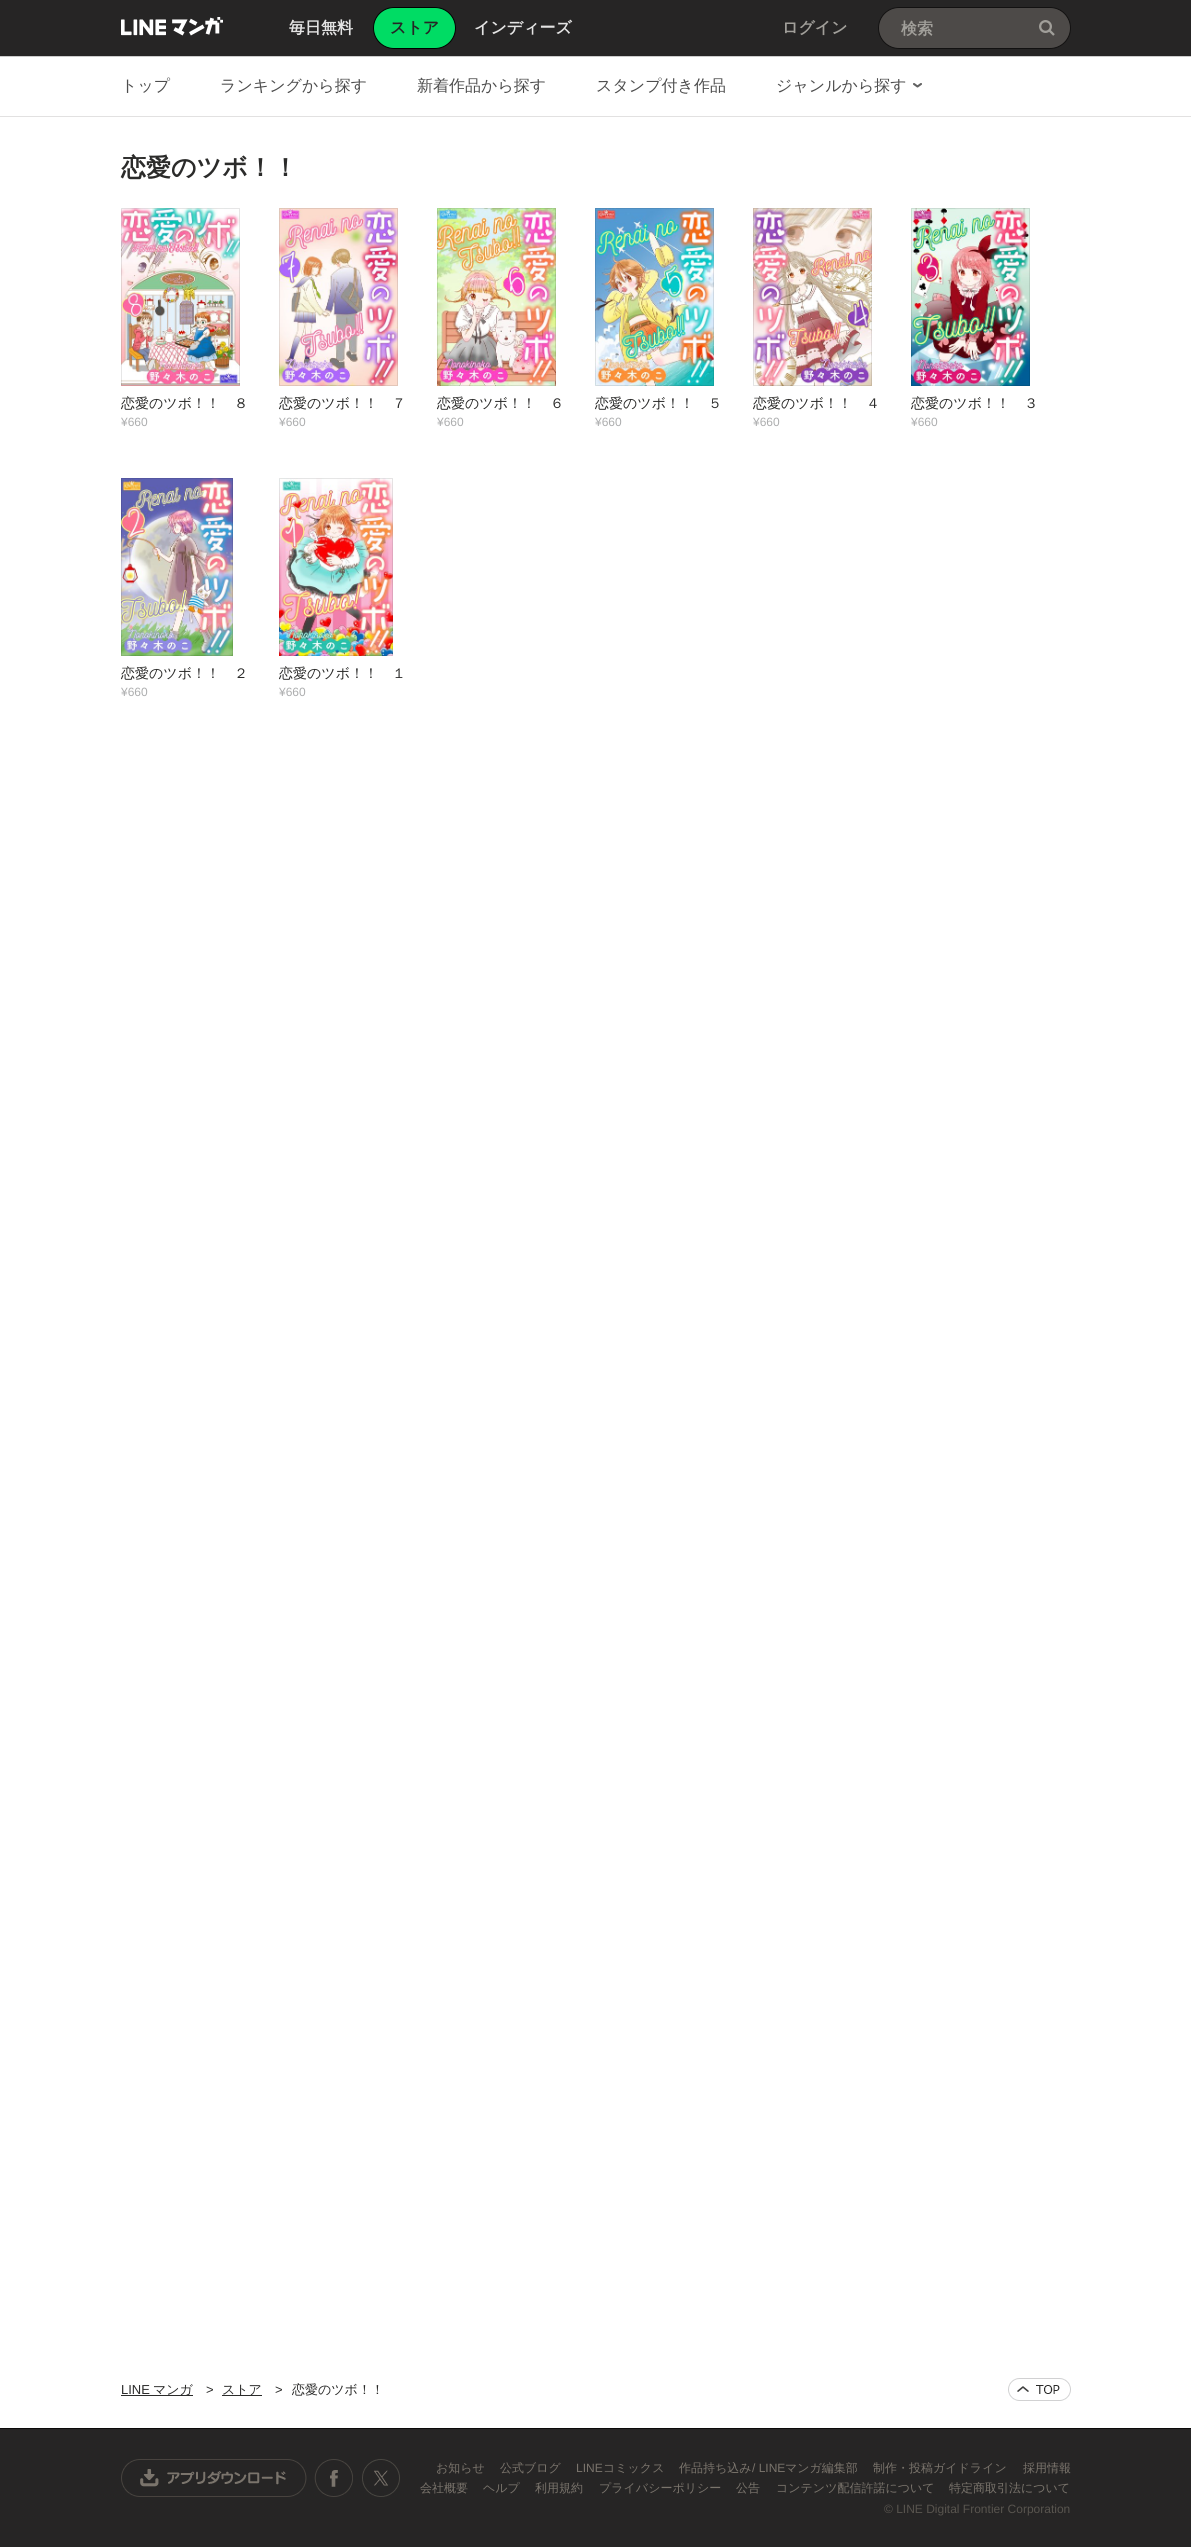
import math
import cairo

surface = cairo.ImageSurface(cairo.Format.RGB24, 1191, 2547)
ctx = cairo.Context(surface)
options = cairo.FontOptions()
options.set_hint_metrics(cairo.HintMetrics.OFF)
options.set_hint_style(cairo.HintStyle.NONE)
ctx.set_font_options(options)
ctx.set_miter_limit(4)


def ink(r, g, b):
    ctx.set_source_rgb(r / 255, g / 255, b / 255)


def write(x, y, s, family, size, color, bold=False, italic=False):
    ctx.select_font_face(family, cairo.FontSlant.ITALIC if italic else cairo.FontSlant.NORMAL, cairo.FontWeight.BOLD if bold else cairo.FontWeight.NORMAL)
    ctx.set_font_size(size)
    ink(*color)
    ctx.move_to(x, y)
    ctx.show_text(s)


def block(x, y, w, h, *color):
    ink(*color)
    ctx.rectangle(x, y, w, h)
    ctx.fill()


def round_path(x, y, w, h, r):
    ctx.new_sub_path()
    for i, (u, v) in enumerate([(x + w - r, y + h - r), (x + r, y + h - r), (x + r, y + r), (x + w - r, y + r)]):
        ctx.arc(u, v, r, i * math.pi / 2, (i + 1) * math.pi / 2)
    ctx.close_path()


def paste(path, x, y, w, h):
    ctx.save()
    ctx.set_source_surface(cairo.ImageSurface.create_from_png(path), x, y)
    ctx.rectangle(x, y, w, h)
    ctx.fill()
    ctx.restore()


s1 = dict(family="WenQuanYi Zen Hei", size=16, color=(227, 227, 227), bold=True)
s2 = dict(family="WenQuanYi Zen Hei", size=16, color=(38, 37, 37), bold=True)
s3 = dict(family="WenQuanYi Zen Hei", size=16, color=(161, 159, 154), bold=True)
s4 = dict(family="WenQuanYi Zen Hei Medium", size=16, color=(77, 77, 77))
s5 = dict(family="WenQuanYi Zen Hei", size=25, color=(43, 43, 42), bold=True)
s6 = dict(family="WenQuanYi Zen Hei Medium", size=14, color=(43, 43, 42))
s7 = dict(family="Liberation Sans", size=12, color=(172, 173, 174))
s8 = dict(family="Liberation Sans", size=13, color=(43, 43, 42))
s9 = dict(family="WenQuanYi Zen Hei Medium", size=13, color=(43, 43, 42))
s10 = dict(family="WenQuanYi Zen Hei Medium", size=12, color=(122, 116, 108))
s11 = dict(family="Liberation Sans", size=12, color=(122, 116, 108))
s12 = dict(family="Liberation Sans", size=12, color=(88, 84, 78))

ink(255, 255, 255)
ctx.paint()
block(0, 0, 1191, 56, 38, 37, 37)
paste("pic1.png", 121, 17, 102, 19)
write(289, 33, "毎日無料", **s1)
ink(0, 220, 100)
round_path(373.5, 7.5, 82, 41, 20.5)
ctx.fill_preserve()
ink(0, 0, 0)
ctx.set_line_width(1)
ctx.stroke()
write(390, 33, "ストア", **s2)
write(474, 33, "インディーズ", **s1)
write(782, 33, "ログイン", **s3)
ink(77, 74, 72)
round_path(878.5, 7.5, 192, 41, 20.5)
ctx.fill_preserve()
ink(18, 17, 17)
ctx.stroke()
write(901, 34, "検索", **s3)
paste("pic2.png", 1039, 20, 16, 16)
block(0, 56, 1191, 1, 204, 204, 204)
write(121, 91, "トップ", **s4)
write(220, 91, "ランキングから探す", **s4)
write(417, 91, "新着作品から探す", **s4)
write(596, 91, "スタンプ付き作品", **s4)
write(776, 91, "ジャンルから探す", **s4)
paste("pic3.png", 913, 83, 9, 5)
block(0, 116, 1191, 1, 226, 225, 225)
write(121, 176, "恋愛のツボ！！", **s5)
paste("pic4.png", 121, 208, 119, 178)
ctx.rectangle(121.5, 208.5, 118, 177)
ctx.set_source_rgba(0, 0, 0, 0.1)
ctx.stroke()
write(121, 408, "恋愛のツボ！！　８", **s6)
write(121, 426, "¥660", **s7)
paste("pic5.png", 279, 208, 119, 178)
ctx.rectangle(279.5, 208.5, 118, 177)
ctx.set_source_rgba(0, 0, 0, 0.1)
ctx.stroke()
write(279, 408, "恋愛のツボ！！　７", **s6)
write(279, 426, "¥660", **s7)
paste("pic6.png", 437, 208, 119, 178)
ctx.rectangle(437.5, 208.5, 118, 177)
ctx.set_source_rgba(0, 0, 0, 0.1)
ctx.stroke()
write(437, 408, "恋愛のツボ！！　６", **s6)
write(437, 426, "¥660", **s7)
paste("pic7.png", 595, 208, 119, 178)
ctx.rectangle(595.5, 208.5, 118, 177)
ctx.set_source_rgba(0, 0, 0, 0.1)
ctx.stroke()
write(595, 408, "恋愛のツボ！！　５", **s6)
write(595, 426, "¥660", **s7)
paste("pic8.png", 753, 208, 119, 178)
ctx.rectangle(753.5, 208.5, 118, 177)
ctx.set_source_rgba(0, 0, 0, 0.1)
ctx.stroke()
write(753, 408, "恋愛のツボ！！　４", **s6)
write(753, 426, "¥660", **s7)
paste("pic9.png", 911, 208, 119, 178)
ctx.rectangle(911.5, 208.5, 118, 177)
ctx.set_source_rgba(0, 0, 0, 0.1)
ctx.stroke()
write(911, 408, "恋愛のツボ！！　３", **s6)
write(911, 426, "¥660", **s7)
paste("pic10.png", 121, 478, 112, 178)
ctx.rectangle(121.5, 478.5, 111, 177)
ctx.set_source_rgba(0, 0, 0, 0.1)
ctx.stroke()
write(121, 678, "恋愛のツボ！！　２", **s6)
write(121, 696, "¥660", **s7)
paste("pic11.png", 279, 478, 114, 178)
ctx.rectangle(279.5, 478.5, 113, 177)
ctx.set_source_rgba(0, 0, 0, 0.1)
ctx.stroke()
write(279, 678, "恋愛のツボ！！　１", **s6)
write(279, 696, "¥660", **s7)
write(121, 2394, "LINE", **s8)
block(121, 2395, 72, 1, 43, 43, 42)
write(153, 2394, "マンガ", **s9)
write(206, 2394, ">", **s8)
block(222, 2395, 40, 1, 43, 43, 42)
write(222, 2394, "ストア", **s9)
write(275, 2394, ">", **s8)
write(292, 2394, "恋愛のツボ！！", **s9)
paste("pic12.png", 1008, 2378, 63, 23)
block(0, 2429, 1191, 118, 38, 37, 37)
block(0, 2428, 1191, 1, 11, 10, 10)
paste("pic13.png", 121, 2459, 186, 38)
paste("pic14.png", 314, 2459, 39, 38)
paste("pic15.png", 362, 2459, 38, 38)
write(436, 2472, "お知らせ", **s10)
write(500, 2472, "公式ブログ", **s10)
write(576, 2472, "LINE", **s11)
write(603, 2472, "コミックス", **s10)
write(679, 2472, "作品持ち込み", **s10)
write(752, 2472, "/ LINE", **s11)
write(785, 2472, "マンガ編集部", **s10)
write(873, 2472, "制作・投稿ガイドライン", **s10)
write(1023, 2472, "採用情報", **s10)
write(420, 2492, "会社概要", **s10)
write(483, 2492, "ヘルプ", **s10)
write(535, 2492, "利用規約", **s10)
write(599, 2492, "プライバシーポリシー", **s10)
write(736, 2492, "公告", **s10)
write(776, 2492, "コンテンツ配信許諾について", **s10)
write(949, 2492, "特定商取引法について", **s10)
write(884, 2513, "© LINE Digital Frontier Corporation", **s12)
surface.write_to_png("screenshot.png")
